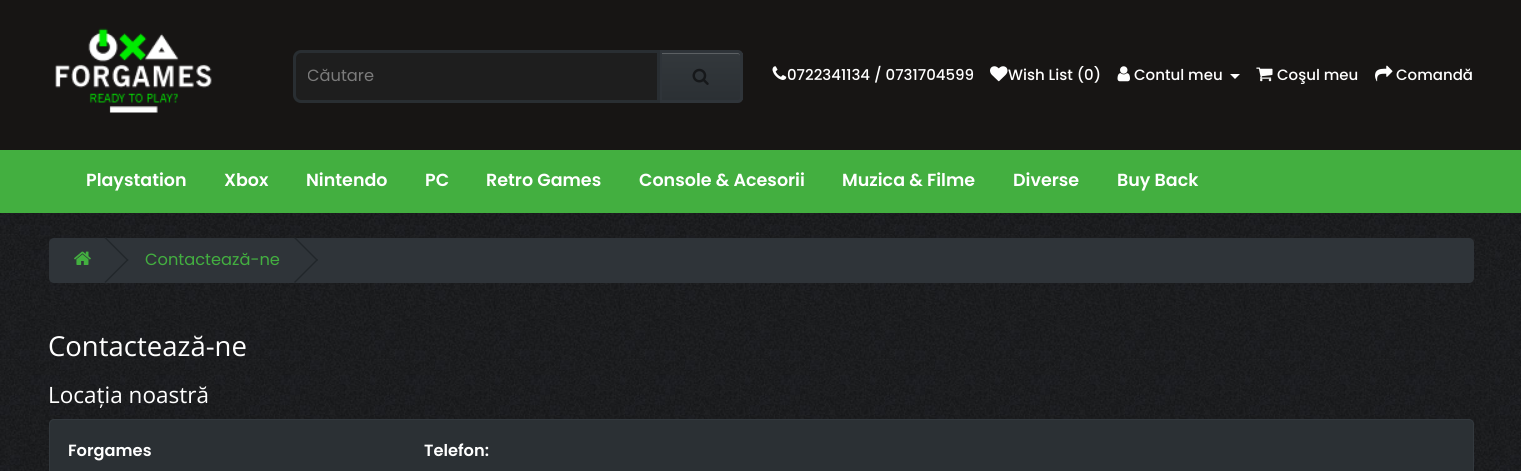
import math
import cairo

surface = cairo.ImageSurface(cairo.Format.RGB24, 1521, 471)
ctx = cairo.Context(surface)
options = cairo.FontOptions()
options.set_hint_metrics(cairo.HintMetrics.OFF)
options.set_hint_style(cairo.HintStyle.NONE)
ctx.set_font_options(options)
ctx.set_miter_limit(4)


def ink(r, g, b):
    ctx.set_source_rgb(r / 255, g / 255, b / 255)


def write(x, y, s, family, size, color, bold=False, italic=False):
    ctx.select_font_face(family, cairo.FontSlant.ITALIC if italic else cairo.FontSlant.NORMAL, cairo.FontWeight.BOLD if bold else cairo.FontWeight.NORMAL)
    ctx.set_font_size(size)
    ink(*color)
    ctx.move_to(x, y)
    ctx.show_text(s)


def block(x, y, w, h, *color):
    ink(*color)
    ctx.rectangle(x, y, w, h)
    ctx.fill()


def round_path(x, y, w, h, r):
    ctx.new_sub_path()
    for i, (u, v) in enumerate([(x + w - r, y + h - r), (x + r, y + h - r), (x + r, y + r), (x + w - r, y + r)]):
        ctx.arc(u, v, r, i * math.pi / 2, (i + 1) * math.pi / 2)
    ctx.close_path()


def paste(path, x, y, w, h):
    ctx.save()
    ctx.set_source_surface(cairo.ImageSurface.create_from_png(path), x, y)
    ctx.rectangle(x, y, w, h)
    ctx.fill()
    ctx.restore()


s1 = dict(family="Poppins", size=16.25, color=(123, 123, 123))
s2 = dict(family="Poppins Medium", size=15, color=(255, 255, 255))
s3 = dict(family="Poppins SemiBold", size=17.5, color=(255, 255, 255))
s4 = dict(family="Poppins", size=16.25, color=(67, 175, 64))
s5 = dict(family="Open Sans", size=27.5, color=(255, 255, 255))
s6 = dict(family="Open Sans", size=22.5, color=(255, 255, 255))
s7 = dict(family="Poppins SemiBold", size=16.25, color=(255, 255, 255))

ink(255, 255, 255)
ctx.paint()
paste("pic1.png", 0, 213, 1521, 258)
block(0, 0, 1521, 150, 23, 21, 20)
paste("pic2.png", 55, 28, 157, 85)
gradient = cairo.LinearGradient(701, 53, 701, 100)
gradient.add_color_stop_rgba(0, 0.2, 0.22, 0.235, 1)
gradient.add_color_stop_rgba(1, 0.169, 0.188, 0.204, 1)
ctx.set_source(gradient)
ctx.rectangle(662, 53, 81, 47)
ctx.fill()
ink(92, 96, 99)
ctx.new_path()
ctx.move_to(661, 54)
ctx.line_to(738, 54)
ctx.curve_to(739, 54, 740, 55, 740, 56)
ctx.curve_to(740, 54, 739, 53, 738, 53)
ctx.line_to(661, 53)
ctx.close_path()
ctx.fill()
ctx.new_path()
ctx.move_to(660.5, 51.5)
ctx.line_to(738, 51.5)
ctx.curve_to(740, 51.5, 741.5, 53, 741.5, 55)
ctx.line_to(741.5, 98)
ctx.curve_to(741.5, 100, 740, 101.5, 738, 101.5)
ctx.line_to(660.5, 101.5)
ctx.close_path()
ink(47, 52, 57)
ctx.set_line_width(3)
ctx.stroke()
ctx.set_source_rgba(0.235, 0.263, 0.286, 0.2)
ctx.new_path()
ctx.move_to(301, 51.5)
ctx.line_to(658.5, 51.5)
ctx.line_to(658.5, 101.5)
ctx.line_to(301, 101.5)
ctx.curve_to(297.5, 101.5, 294.5, 98.5, 294.5, 95)
ctx.line_to(294.5, 58)
ctx.curve_to(294.5, 54.5, 297.5, 51.5, 301, 51.5)
ctx.close_path()
ctx.fill_preserve()
ink(41, 46, 50)
ctx.stroke()
ctx.save()
ctx.rectangle(308, 64, 337, 25)
ctx.clip()
write(307, 81, "Căutare", **s1)
ctx.restore()
paste("pic3.png", 692, 68, 17, 17)
paste("pic4.png", 772, 66, 15, 14)
write(787, 80, "0722341134 / 0731704599", **s2)
paste("pic5.png", 990, 66, 18, 16)
write(1008, 80, "Wish List (0)", **s2)
paste("pic6.png", 1117, 66, 13, 16)
write(1134, 80, "Contul meu", **s2)
ctx.new_path()
ctx.move_to(1230, 74)
ctx.line_to(1240, 74)
ctx.line_to(1235, 79)
ctx.close_path()
ctx.fill()
paste("pic7.png", 1256, 67, 17, 15)
write(1277, 80, "Coşul meu", **s2)
paste("pic8.png", 1375, 65, 18, 17)
write(1396, 80, "Comandă", **s2)
block(0, 150, 1521, 63, 67, 175, 64)
write(86, 186, "Playstation", **s3)
write(224, 186, "Xbox", **s3)
write(306, 186, "Nintendo", **s3)
write(425, 186, "PC", **s3)
write(486, 186, "Retro Games", **s3)
write(639, 186, "Console & Acesorii", **s3)
write(842, 186, "Muzica & Filme", **s3)
write(1013, 186, "Diverse", **s3)
write(1117, 186, "Buy Back", **s3)
ink(47, 52, 57)
round_path(49, 238, 1425, 45, 5)
ctx.fill()
paste("pic9.png", 74, 251, 17, 14)
ink(33, 38, 42)
ctx.new_path()
ctx.move_to(104.5, 238)
ctx.line_to(105.5, 237)
ctx.line_to(128.5, 260)
ctx.line_to(127.5, 261)
ctx.close_path()
ctx.fill()
ctx.new_path()
ctx.move_to(104.5, 282)
ctx.line_to(127.5, 259)
ctx.line_to(128.5, 260)
ctx.line_to(105.5, 283)
ctx.close_path()
ctx.fill()
write(145, 265, "Contactează-ne", **s4)
ink(33, 38, 42)
ctx.new_path()
ctx.move_to(294, 238)
ctx.line_to(295, 237)
ctx.line_to(318, 260)
ctx.line_to(317, 261)
ctx.close_path()
ctx.fill()
ctx.new_path()
ctx.move_to(294, 282)
ctx.line_to(317, 259)
ctx.line_to(318, 260)
ctx.line_to(295, 283)
ctx.close_path()
ctx.fill()
write(48, 356, "Contactează-ne", **s5)
write(48, 403, "Locația noastră", **s6)
ink(43, 48, 52)
round_path(49.5, 419.5, 1424, 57, 4.5)
ctx.fill_preserve()
ink(51, 57, 62)
ctx.set_line_width(1)
ctx.stroke()
write(68, 456, "Forgames", **s7)
write(424, 456, "Telefon:", **s7)
surface.write_to_png("screenshot.png")
